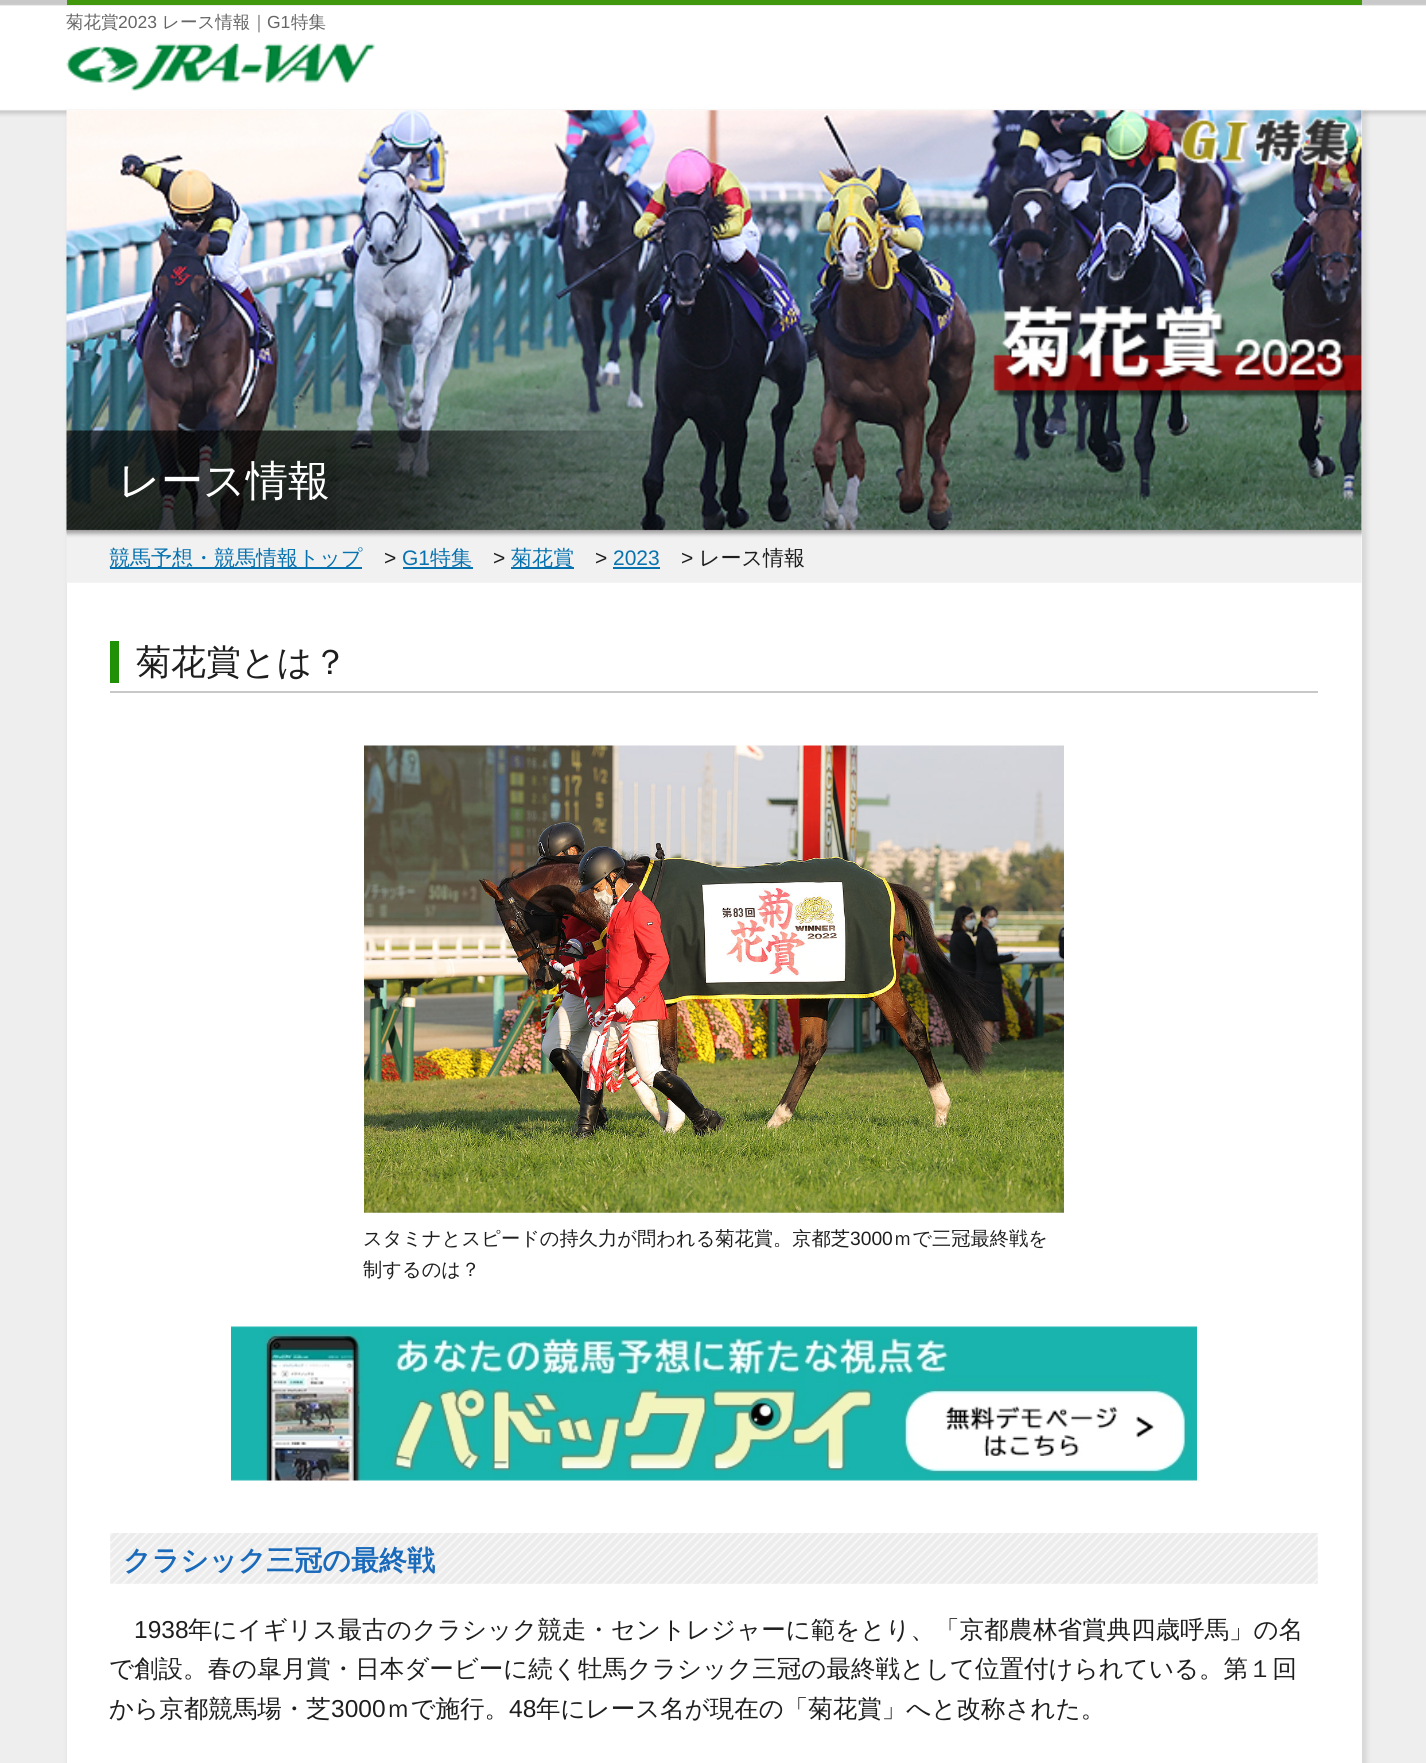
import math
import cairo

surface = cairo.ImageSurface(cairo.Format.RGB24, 1426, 1763)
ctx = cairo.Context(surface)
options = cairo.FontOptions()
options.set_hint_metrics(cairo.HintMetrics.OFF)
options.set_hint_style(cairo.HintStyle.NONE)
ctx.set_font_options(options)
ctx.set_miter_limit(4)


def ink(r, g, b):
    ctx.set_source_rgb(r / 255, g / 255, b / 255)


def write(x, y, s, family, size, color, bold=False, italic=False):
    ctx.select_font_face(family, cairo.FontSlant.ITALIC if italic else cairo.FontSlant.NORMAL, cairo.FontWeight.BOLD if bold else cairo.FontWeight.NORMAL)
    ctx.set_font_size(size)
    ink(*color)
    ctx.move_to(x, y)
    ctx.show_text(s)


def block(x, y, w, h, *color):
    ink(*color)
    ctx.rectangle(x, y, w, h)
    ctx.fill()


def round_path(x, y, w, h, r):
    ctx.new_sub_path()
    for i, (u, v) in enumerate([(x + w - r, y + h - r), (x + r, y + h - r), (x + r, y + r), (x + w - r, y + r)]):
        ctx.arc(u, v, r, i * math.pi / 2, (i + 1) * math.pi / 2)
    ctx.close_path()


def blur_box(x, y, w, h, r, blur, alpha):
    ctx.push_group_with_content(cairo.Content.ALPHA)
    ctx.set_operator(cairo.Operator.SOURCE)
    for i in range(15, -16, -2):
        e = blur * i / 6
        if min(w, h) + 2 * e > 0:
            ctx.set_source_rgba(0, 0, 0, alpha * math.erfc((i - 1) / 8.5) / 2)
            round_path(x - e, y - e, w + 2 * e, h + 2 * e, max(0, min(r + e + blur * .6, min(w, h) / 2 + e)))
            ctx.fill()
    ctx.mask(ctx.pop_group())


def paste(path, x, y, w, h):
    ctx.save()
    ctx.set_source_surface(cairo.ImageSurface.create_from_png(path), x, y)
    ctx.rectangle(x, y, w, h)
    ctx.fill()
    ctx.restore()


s1 = dict(family="WenQuanYi Zen Hei Medium", size=17.5, color=(102, 102, 102))
s2 = dict(family="Liberation Sans", size=17.5, color=(102, 102, 102))
s3 = dict(family="WenQuanYi Zen Hei Medium", size=42, color=(255, 255, 255))
s4 = dict(family="WenQuanYi Zen Hei Medium", size=21, color=(8, 114, 175))
s5 = dict(family="Liberation Sans", size=21, color=(30, 30, 30))
s6 = dict(family="Liberation Sans", size=21, color=(8, 114, 175))
s7 = dict(family="WenQuanYi Zen Hei Medium", size=21, color=(30, 30, 30))
s8 = dict(family="WenQuanYi Zen Hei Medium", size=35, color=(30, 30, 30))
s9 = dict(family="WenQuanYi Zen Hei Medium", size=19.25, color=(30, 30, 30))
s10 = dict(family="Liberation Sans", size=19.25, color=(30, 30, 30))
s11 = dict(family="WenQuanYi Zen Hei", size=28, color=(26, 106, 187), bold=True)
s12 = dict(family="Liberation Sans", size=24.5, color=(30, 30, 30))
s13 = dict(family="WenQuanYi Zen Hei Medium", size=24.5, color=(30, 30, 30))

ink(238, 238, 238)
ctx.paint()
paste("pic1.png", 0, 0, 1426, 117)
block(67, 0, 1295, 5, 65, 152, 12)
write(66, 28, "菊花賞", **s1)
write(118, 28, "2023", **s2)
write(162, 28, "レース情報｜", **s1)
write(267, 28, "G1", **s2)
write(291, 28, "特集", **s1)
paste("pic2.png", 66, 43, 309, 48)
ink(0, 0, 0)
blur_box(68, 112, 1299, 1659, 0, 2.5, 0.1)
block(67, 110, 1295, 1653, 255, 255, 255)
paste("pic3.png", 66, 110, 1296, 427)
write(118, 495, "レース情報", **s3)
paste("pic4.png", 66, 530, 1296, 53)
block(110, 567, 252, 2, 8, 114, 175)
write(109, 565, "競馬予想・競馬情報トップ", **s4)
write(384, 565, ">", **s5)
write(402, 565, "G1", **s6)
block(403, 567, 70, 2, 8, 114, 175)
write(430, 565, "特集", **s4)
write(493, 565, ">", **s5)
block(511, 567, 63, 2, 8, 114, 175)
write(511, 565, "菊花賞", **s4)
write(595, 565, ">", **s5)
write(613, 565, "2023", **s6)
block(613, 567, 47, 2, 8, 114, 175)
write(681, 565, ">", **s5)
write(699, 565, "レース情報", **s7)
block(110, 691, 1208, 2, 200, 200, 200)
block(110, 641, 9, 42, 32, 145, 6)
write(136, 674, "菊花賞とは？", **s8)
paste("pic5.png", 364, 745, 700, 468)
write(363, 1245, "スタミナとスピードの持久力が問われる菊花賞。京都芝", **s9)
write(850, 1245, "3000", **s10)
write(893, 1245, "ｍで三冠最終戦を", **s9)
write(363, 1276, "制するのは？", **s9)
paste("pic6.png", 231, 1326, 966, 155)
paste("pic7.png", 110, 1533, 1208, 51)
write(123, 1570, "クラシック三冠の最終戦", **s11)
write(134, 1638, "1938", **s12)
write(188, 1638, "年にイギリス最古のクラシック競走・セントレジャーに範をとり、「京都農林省賞典四歳呼馬」の名", **s13)
write(109, 1677, "で創設。春の皐月賞・日本ダービーに続く牡馬クラシック三冠の最終戦として位置付けられている。第１回", **s13)
write(109, 1717, "から京都競馬場・芝", **s13)
write(331, 1717, "3000", **s12)
write(386, 1717, "ｍで施行。", **s13)
write(509, 1717, "48", **s12)
write(536, 1717, "年にレース名が現在の「菊花賞」へと改称された。", **s13)
surface.write_to_png("screenshot.png")
